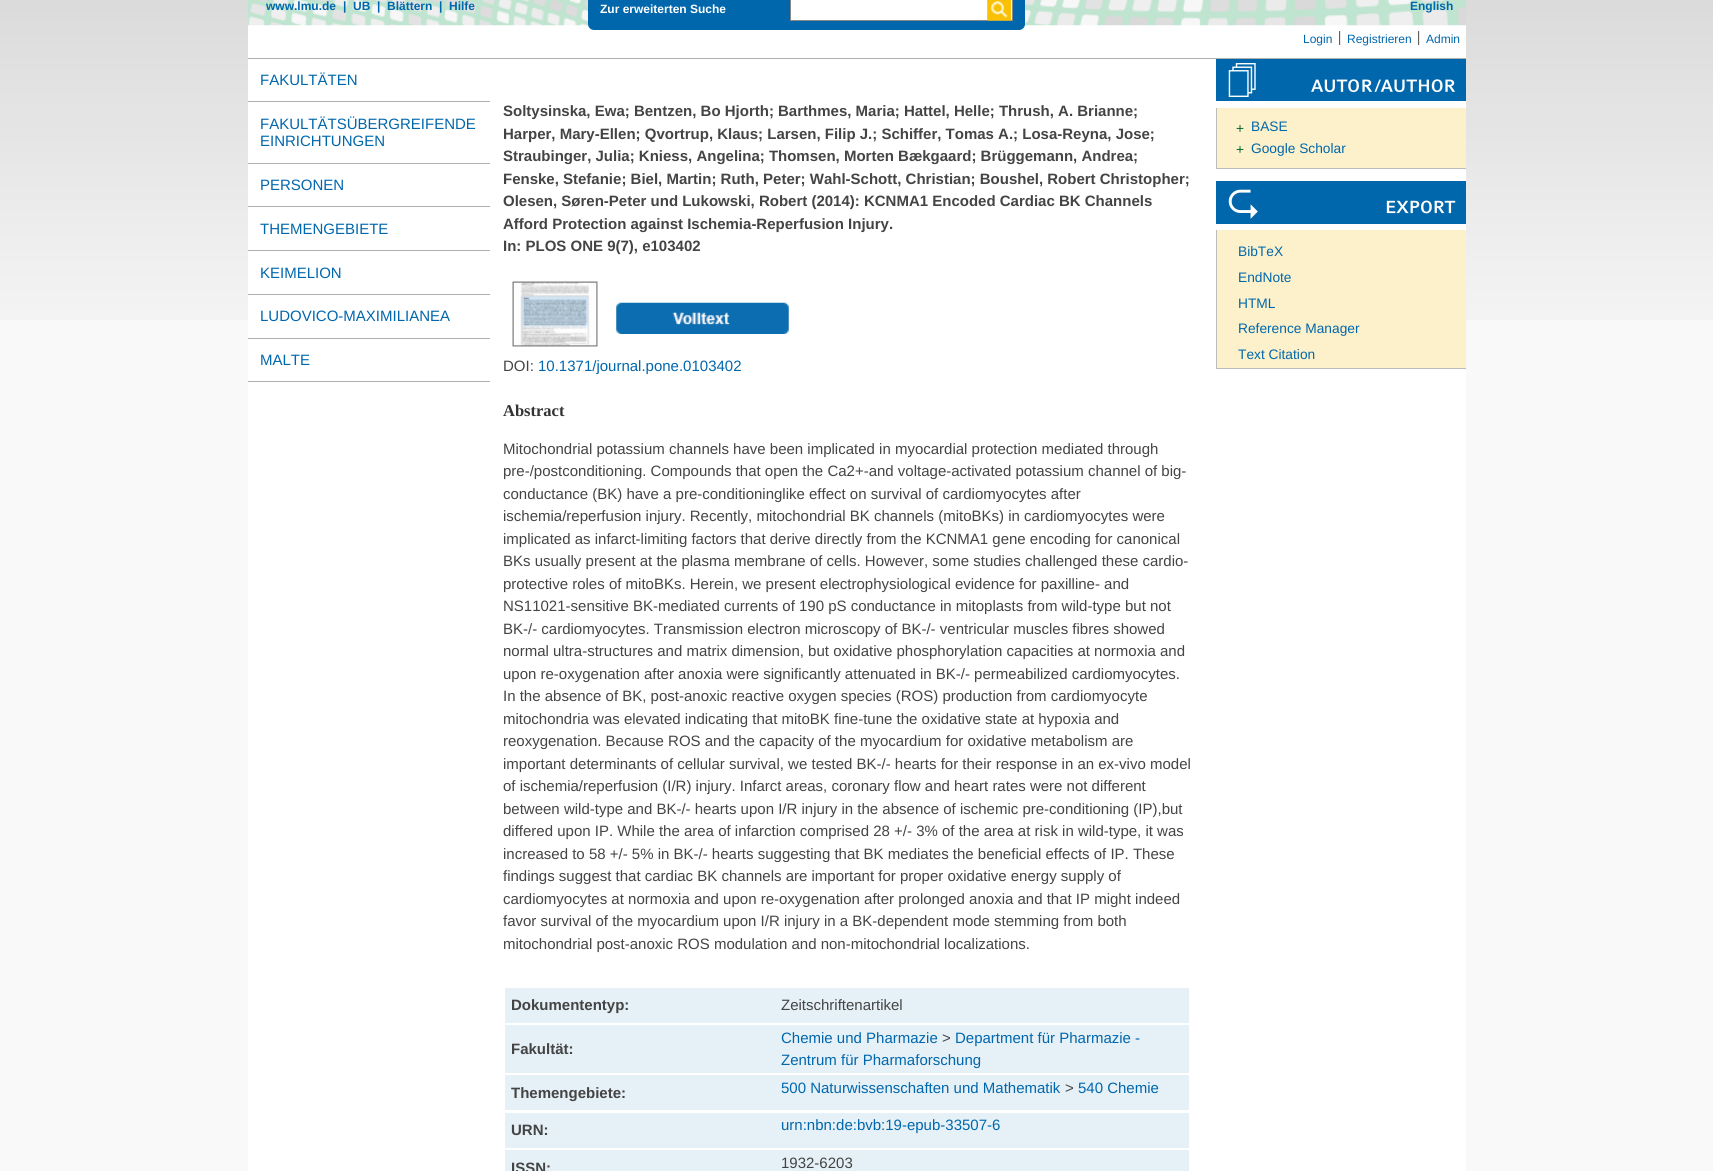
import math
import cairo

surface = cairo.ImageSurface(cairo.Format.RGB24, 1713, 1171)
ctx = cairo.Context(surface)
options = cairo.FontOptions()
options.set_hint_metrics(cairo.HintMetrics.OFF)
options.set_hint_style(cairo.HintStyle.NONE)
ctx.set_font_options(options)
ctx.set_miter_limit(4)


def ink(r, g, b):
    ctx.set_source_rgb(r / 255, g / 255, b / 255)


def write(x, y, s, family, size, color, bold=False, italic=False):
    ctx.select_font_face(family, cairo.FontSlant.ITALIC if italic else cairo.FontSlant.NORMAL, cairo.FontWeight.BOLD if bold else cairo.FontWeight.NORMAL)
    ctx.set_font_size(size)
    ink(*color)
    ctx.move_to(x, y)
    ctx.show_text(s)


def block(x, y, w, h, *color):
    ink(*color)
    ctx.rectangle(x, y, w, h)
    ctx.fill()


def round_path(x, y, w, h, r):
    ctx.new_sub_path()
    for i, (u, v) in enumerate([(x + w - r, y + h - r), (x + r, y + h - r), (x + r, y + r), (x + w - r, y + r)]):
        ctx.arc(u, v, r, i * math.pi / 2, (i + 1) * math.pi / 2)
    ctx.close_path()


def paste(path, x, y, w, h):
    ctx.save()
    ctx.set_source_surface(cairo.ImageSurface.create_from_png(path), x, y)
    ctx.rectangle(x, y, w, h)
    ctx.fill()
    ctx.restore()


s1 = dict(family="Liberation Sans", size=12, color=(0, 103, 172), bold=True)
s2 = dict(family="Liberation Sans", size=12, color=(255, 255, 255), bold=True)
s3 = dict(family="Liberation Sans", size=12, color=(0, 103, 172))
s4 = dict(family="Liberation Sans", size=15, color=(0, 103, 172))
s5 = dict(family="Liberation Sans", size=15, color=(68, 68, 68), bold=True)
s6 = dict(family="Liberation Sans", size=15, color=(68, 68, 68))
s7 = dict(family="Liberation Serif", size=16.5, color=(51, 51, 51), bold=True)
s8 = dict(family="Liberation Sans", size=13.75, color=(0, 102, 51))
s9 = dict(family="Liberation Sans", size=13.75, color=(0, 103, 172))

ink(249, 249, 249)
ctx.paint()
paste("pic1.png", 0, 0, 1713, 320)
block(248, 25, 1218, 1146, 255, 255, 255)
paste("pic2.png", 247, 0, 1219, 26)
write(266, 10, "www.lmu.de", **s1)
write(343, 10, "|", **s1)
write(353, 10, "UB", **s1)
write(377, 10, "|", **s1)
write(387, 10, "Blättern", **s1)
write(439, 10, "|", **s1)
write(449, 10, "Hilfe", **s1)
round_path(588, -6, 437, 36, 6)
ctx.fill()
write(600, 13, "Zur erweiterten Suche", **s2)
ctx.rectangle(790.5, -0.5, 222, 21)
ctx.fill_preserve()
ink(136, 136, 136)
ctx.set_line_width(1)
ctx.stroke()
paste("pic3.png", 987, 0, 25, 21)
paste("pic4.png", 987, 0, 25, 21)
write(1410, 10, "English", **s1)
write(1303, 43, "Login", **s3)
block(1339, 31, 1, 14, 96, 96, 96)
write(1347, 43, "Registrieren", **s3)
block(1418, 31, 1, 14, 96, 96, 96)
block(1340, 31, 1, 14, 232, 232, 232)
write(1426, 43, "Admin", **s3)
block(1419, 31, 1, 14, 232, 232, 232)
write(260, 85, "FAKULTÄTEN", **s4)
block(248, 101, 242, 1, 175, 175, 175)
write(260, 129, "FAKULTÄTSÜBERGREIFENDE", **s4)
write(260, 146, "EINRICHTUNGEN", **s4)
block(248, 163, 242, 1, 175, 175, 175)
write(260, 190, "PERSONEN", **s4)
block(248, 206, 242, 1, 175, 175, 175)
write(260, 234, "THEMENGEBIETE", **s4)
block(248, 250, 242, 1, 175, 175, 175)
write(260, 278, "KEIMELION", **s4)
block(248, 294, 242, 1, 175, 175, 175)
write(260, 321, "LUDOVICO-MAXIMILIANEA", **s4)
block(248, 381, 242, 1, 175, 175, 175)
block(248, 338, 242, 1, 175, 175, 175)
write(260, 365, "MALTE", **s4)
block(248, 58, 1218, 1, 175, 175, 175)
write(503, 116, "Soltysinska, Ewa; Bentzen, Bo Hjorth; Barthmes, Maria; Hattel, Helle; Thrush, A. Brianne;", **s5)
write(503, 139, "Harper, Mary-Ellen; Qvortrup, Klaus; Larsen, Filip J.; Schiffer, Tomas A.; Losa-Reyna, Jose;", **s5)
write(503, 161, "Straubinger, Julia; Kniess, Angelina; Thomsen, Morten Bækgaard; Brüggemann, Andrea;", **s5)
write(503, 184, "Fenske, Stefanie; Biel, Martin; Ruth, Peter; Wahl-Schott, Christian; Boushel, Robert Christopher;", **s5)
write(503, 206, "Olesen, Søren-Peter und Lukowski, Robert (2014): KCNMA1 Encoded Cardiac BK Channels", **s5)
write(503, 229, "Afford Protection against Ischemia-Reperfusion Injury.", **s5)
write(503, 251, "In: PLOS ONE 9(7), e103402", **s5)
paste("pic5.png", 512, 281, 86, 66)
paste("pic6.png", 616, 302, 173, 32)
write(503, 371, "DOI:", **s6)
write(538, 371, "10.1371/journal.pone.0103402", **s4)
write(503, 416, "Abstract", **s7)
write(503, 454, "Mitochondrial potassium channels have been implicated in myocardial protection mediated through", **s6)
write(503, 476, "pre-/postconditioning. Compounds that open the Ca2+-and voltage-activated potassium channel of big-", **s6)
write(503, 499, "conductance (BK) have a pre-conditioninglike effect on survival of cardiomyocytes after", **s6)
write(503, 521, "ischemia/reperfusion injury. Recently, mitochondrial BK channels (mitoBKs) in cardiomyocytes were", **s6)
write(503, 544, "implicated as infarct-limiting factors that derive directly from the KCNMA1 gene encoding for canonical", **s6)
write(503, 566, "BKs usually present at the plasma membrane of cells. However, some studies challenged these cardio-", **s6)
write(503, 589, "protective roles of mitoBKs. Herein, we present electrophysiological evidence for paxilline- and", **s6)
write(503, 611, "NS11021-sensitive BK-mediated currents of 190 pS conductance in mitoplasts from wild-type but not", **s6)
write(503, 634, "BK-/- cardiomyocytes. Transmission electron microscopy of BK-/- ventricular muscles fibres showed", **s6)
write(503, 656, "normal ultra-structures and matrix dimension, but oxidative phosphorylation capacities at normoxia and", **s6)
write(503, 679, "upon re-oxygenation after anoxia were significantly attenuated in BK-/- permeabilized cardiomyocytes.", **s6)
write(503, 701, "In the absence of BK, post-anoxic reactive oxygen species (ROS) production from cardiomyocyte", **s6)
write(503, 724, "mitochondria was elevated indicating that mitoBK fine-tune the oxidative state at hypoxia and", **s6)
write(503, 746, "reoxygenation. Because ROS and the capacity of the myocardium for oxidative metabolism are", **s6)
write(503, 769, "important determinants of cellular survival, we tested BK-/- hearts for their response in an ex-vivo model", **s6)
write(503, 791, "of ischemia/reperfusion (I/R) injury. Infarct areas, coronary flow and heart rates were not different", **s6)
write(503, 814, "between wild-type and BK-/- hearts upon I/R injury in the absence of ischemic pre-conditioning (IP),but", **s6)
write(503, 836, "differed upon IP. While the area of infarction comprised 28 +/- 3% of the area at risk in wild-type, it was", **s6)
write(503, 859, "increased to 58 +/- 5% in BK-/- hearts suggesting that BK mediates the beneficial effects of IP. These", **s6)
write(503, 881, "findings suggest that cardiac BK channels are important for proper oxidative energy supply of", **s6)
write(503, 904, "cardiomyocytes at normoxia and upon re-oxygenation after prolonged anoxia and that IP might indeed", **s6)
write(503, 926, "favor survival of the myocardium upon I/R injury in a BK-dependent mode stemming from both", **s6)
write(503, 949, "mitochondrial post-anoxic ROS modulation and non-mitochondrial localizations.", **s6)
block(505, 988, 684, 35, 229, 240, 247)
write(511, 1010, "Dokumententyp:", **s5)
write(781, 1010, "Zeitschriftenartikel", **s6)
block(505, 1025, 684, 48, 229, 240, 247)
write(511, 1054, "Fakultät:", **s5)
write(781, 1043, "Chemie und Pharmazie", **s4)
write(942, 1043, ">", **s6)
write(955, 1043, "Department für Pharmazie -", **s4)
write(781, 1065, "Zentrum für Pharmaforschung", **s4)
block(505, 1075, 684, 35, 229, 240, 247)
write(511, 1098, "Themengebiete:", **s5)
write(781, 1093, "500 Naturwissenschaften und Mathematik", **s4)
write(1065, 1093, ">", **s6)
write(1078, 1093, "540 Chemie", **s4)
block(505, 1113, 684, 35, 229, 240, 247)
write(511, 1135, "URN:", **s5)
write(781, 1130, "urn:nbn:de:bvb:19-epub-33507-6", **s4)
block(505, 1150, 684, 21, 229, 240, 247)
write(511, 1173, "ISSN:", **s5)
write(781, 1168, "1932-6203", **s6)
paste("pic7.png", 1216, 59, 250, 42)
block(1217, 108, 249, 60, 252, 241, 202)
block(1216, 168, 250, 1, 188, 188, 188)
block(1216, 108, 1, 61, 188, 188, 188)
write(1236, 133, "+", **s8)
write(1251, 131, "BASE", **s9)
write(1236, 154, "+", **s8)
write(1251, 153, "Google Scholar", **s9)
paste("pic8.png", 1216, 181, 250, 43)
block(1217, 230, 249, 138, 252, 241, 202)
block(1216, 368, 250, 1, 188, 188, 188)
block(1216, 230, 1, 139, 188, 188, 188)
write(1238, 256, "BibTeX", **s9)
write(1238, 282, "EndNote", **s9)
write(1238, 308, "HTML", **s9)
write(1238, 333, "Reference Manager", **s9)
write(1238, 359, "Text Citation", **s9)
surface.write_to_png("screenshot.png")
